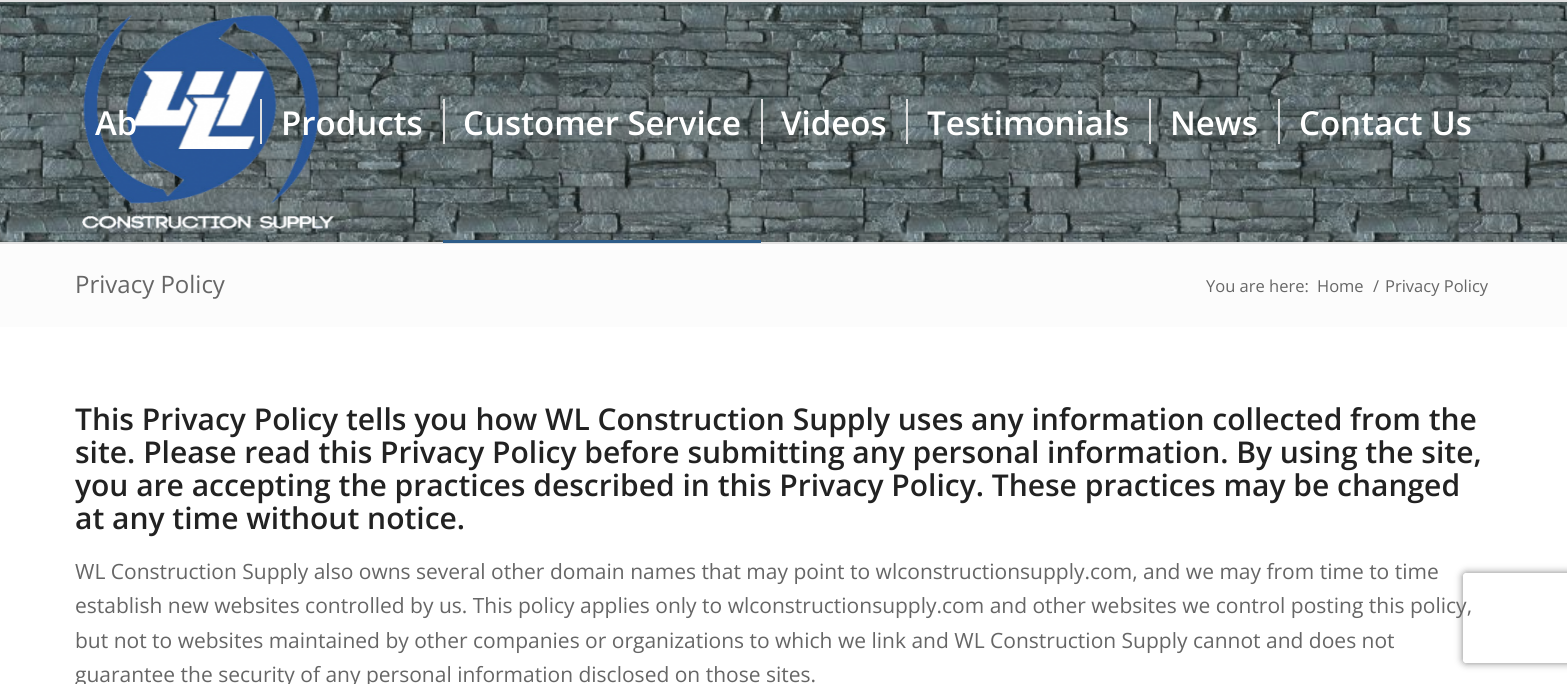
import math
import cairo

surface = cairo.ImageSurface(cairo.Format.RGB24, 1567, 684)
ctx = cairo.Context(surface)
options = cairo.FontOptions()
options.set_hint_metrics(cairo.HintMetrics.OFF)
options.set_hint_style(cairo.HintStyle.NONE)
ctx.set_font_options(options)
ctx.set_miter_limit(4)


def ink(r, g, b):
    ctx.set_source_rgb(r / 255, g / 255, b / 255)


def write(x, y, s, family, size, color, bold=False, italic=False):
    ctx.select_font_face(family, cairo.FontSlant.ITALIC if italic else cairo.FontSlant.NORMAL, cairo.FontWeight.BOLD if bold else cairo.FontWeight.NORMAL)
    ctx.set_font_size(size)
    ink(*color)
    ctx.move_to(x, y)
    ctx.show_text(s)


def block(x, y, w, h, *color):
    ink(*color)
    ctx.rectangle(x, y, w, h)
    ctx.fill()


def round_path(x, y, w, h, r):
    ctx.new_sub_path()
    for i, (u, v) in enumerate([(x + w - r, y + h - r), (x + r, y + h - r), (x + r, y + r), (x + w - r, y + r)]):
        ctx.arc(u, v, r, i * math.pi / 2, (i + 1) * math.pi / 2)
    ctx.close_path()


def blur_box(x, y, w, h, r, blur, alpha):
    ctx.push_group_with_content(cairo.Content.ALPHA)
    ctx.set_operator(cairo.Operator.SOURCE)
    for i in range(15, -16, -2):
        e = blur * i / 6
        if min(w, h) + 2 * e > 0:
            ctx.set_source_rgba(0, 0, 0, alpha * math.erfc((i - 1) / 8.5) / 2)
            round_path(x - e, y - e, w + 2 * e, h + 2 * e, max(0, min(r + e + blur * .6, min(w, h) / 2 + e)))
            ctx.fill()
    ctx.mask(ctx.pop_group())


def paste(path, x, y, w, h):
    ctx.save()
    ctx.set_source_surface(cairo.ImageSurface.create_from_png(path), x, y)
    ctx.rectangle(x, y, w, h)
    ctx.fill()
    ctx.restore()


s1 = dict(family="Open Sans SemiBold", size=33, color=(255, 255, 255))
s2 = dict(family="Open Sans", size=24, color=(102, 102, 102))
s3 = dict(family="Open Sans", size=16.5, color=(102, 102, 102))
s4 = dict(family="Open Sans SemiBold", size=30, color=(34, 34, 34))
s5 = dict(family="Open Sans", size=21, color=(102, 102, 102))

ink(255, 255, 255)
ctx.paint()
block(0, 240, 1567, 87, 252, 252, 252)
paste("pic1.png", 0, 2, 1567, 240)
block(0, 0, 1567, 2, 225, 225, 225)
block(0, 242, 1567, 2, 225, 225, 225)
paste("pic2.png", 82, 14, 253, 216)
write(95, 135, "Ab", **s1)
write(281, 135, "Products", **s1)
block(260, 99, 2, 45, 225, 225, 225)
write(463, 135, "Customer Service", **s1)
block(443, 99, 2, 45, 225, 225, 225)
block(443, 240, 318, 3, 45, 92, 136)
write(781, 135, "Videos", **s1)
block(761, 99, 2, 45, 225, 225, 225)
write(927, 135, "Testimonials", **s1)
block(906, 99, 2, 45, 225, 225, 225)
write(1170, 135, "News", **s1)
block(1149, 99, 2, 45, 225, 225, 225)
write(1299, 135, "Contact Us", **s1)
block(1278, 99, 2, 45, 225, 225, 225)
write(75, 293, "Privacy Policy", **s2)
write(1206, 292, "You are here:", **s3)
write(1317, 292, "Home", **s3)
write(1373, 292, "/", **s3)
write(1385, 292, "Privacy Policy", **s3)
write(75, 430, "This Privacy Policy tells you how WL Construction Supply uses any information collected from the", **s4)
write(75, 463, "site. Please read this Privacy Policy before submitting any personal information. By using the site,", **s4)
write(75, 496, "you are accepting the practices described in this Privacy Policy. These practices may be changed", **s4)
write(75, 529, "at any time without notice.", **s4)
write(75, 579, "WL Construction Supply also owns several other domain names that may point to wlconstructionsupply.com, and we may from time to time", **s5)
ctx.save()
ctx.set_fill_rule(cairo.FillRule.EVEN_ODD)
ctx.new_path()
ctx.move_to(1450, 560)
ctx.line_to(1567, 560)
ctx.line_to(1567, 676)
ctx.line_to(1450, 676)
ctx.close_path()
ctx.move_to(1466, 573)
ctx.line_to(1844, 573)
ctx.curve_to(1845.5, 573, 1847, 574.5, 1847, 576)
ctx.line_to(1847, 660)
ctx.curve_to(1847, 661.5, 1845.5, 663, 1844, 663)
ctx.line_to(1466, 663)
ctx.curve_to(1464.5, 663, 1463, 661.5, 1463, 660)
ctx.line_to(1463, 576)
ctx.curve_to(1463, 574.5, 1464.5, 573, 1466, 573)
ctx.close_path()
ctx.clip()
ink(128, 128, 128)
blur_box(1463, 573, 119, 90, 3, 4, 1)
ctx.restore()
write(75, 613, "establish new websites controlled by us. This policy applies only to wlconstructionsupply.com and other websites we control posting this policy,", **s5)
write(75, 648, "but not to websites maintained by other companies or organizations to which we link and WL Construction Supply cannot and does not", **s5)
write(75, 682, "guarantee the security of any personal information disclosed on those sites.", **s5)
surface.write_to_png("screenshot.png")
